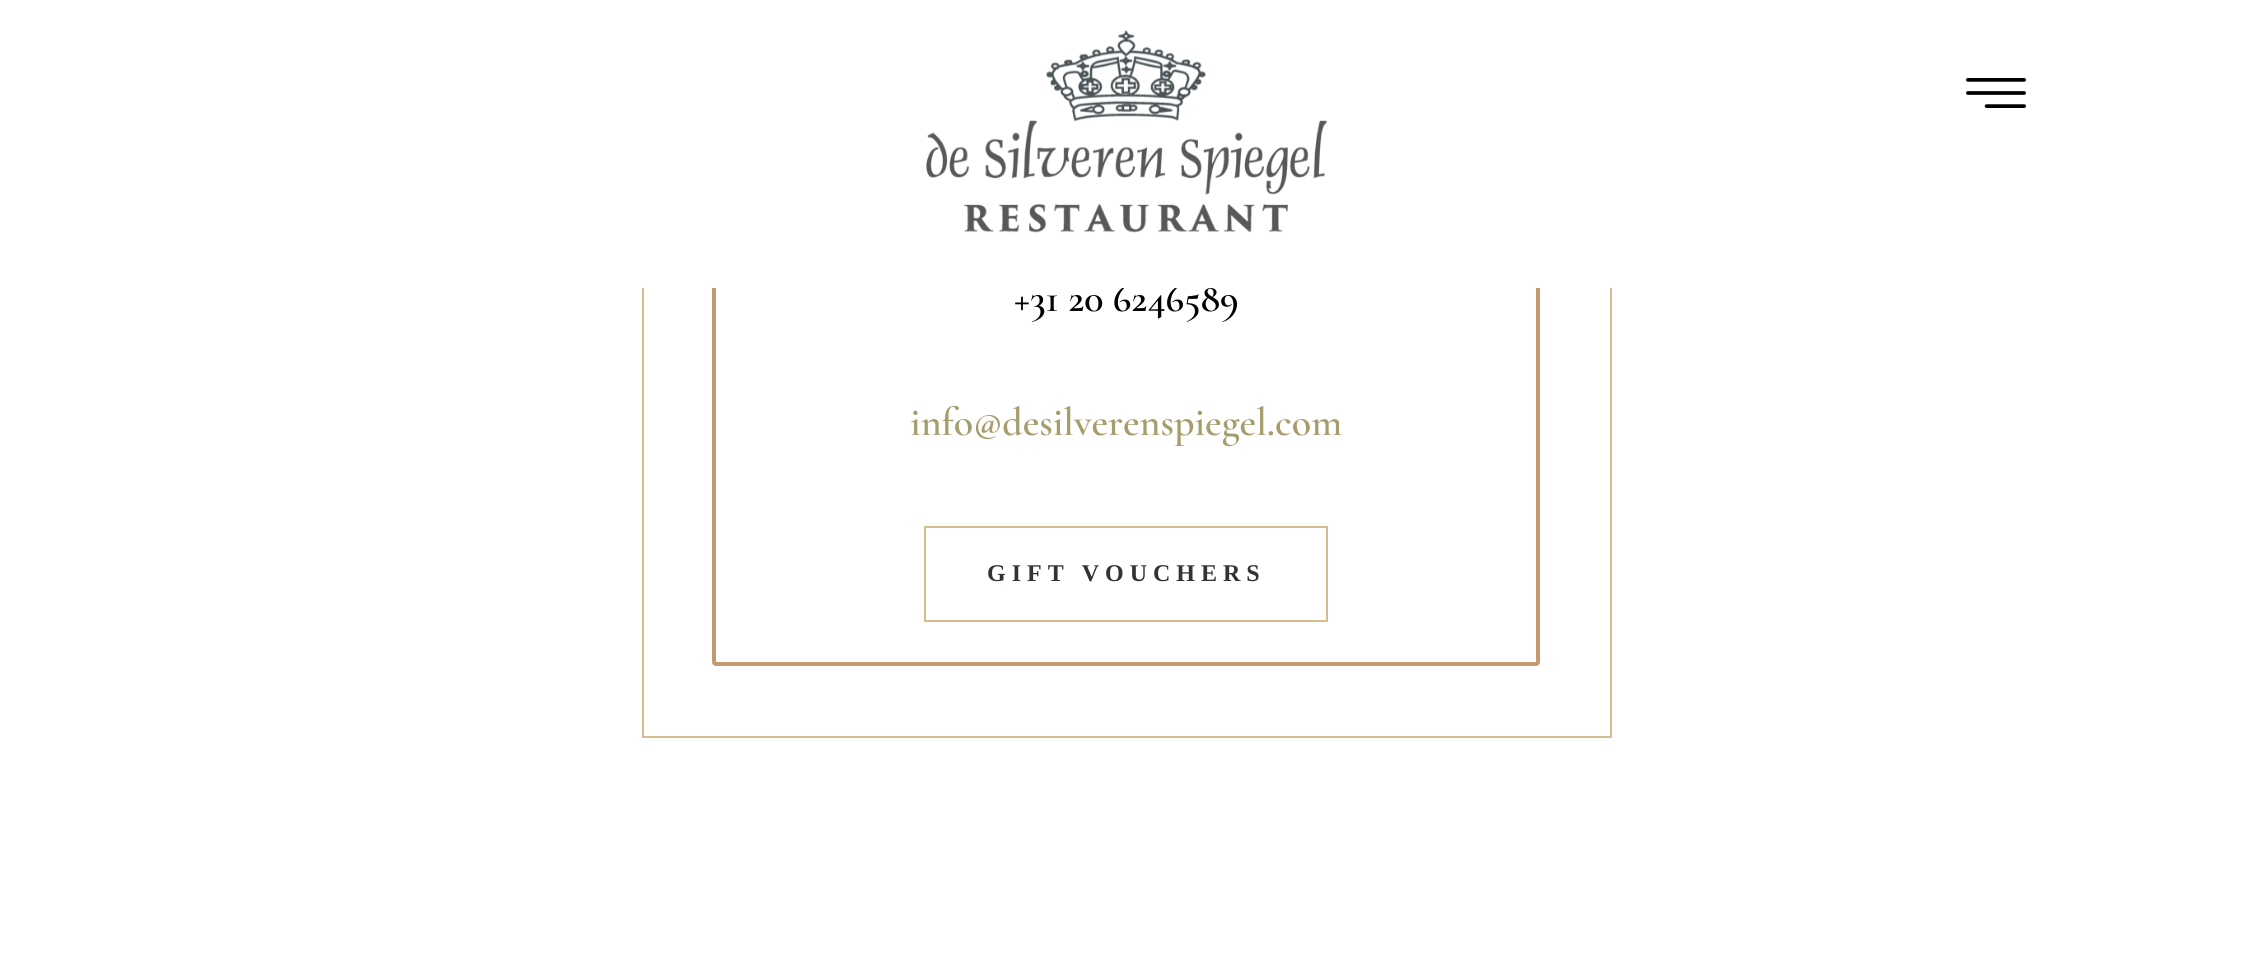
import math
import cairo

surface = cairo.ImageSurface(cairo.Format.RGB24, 2252, 957)
ctx = cairo.Context(surface)
options = cairo.FontOptions()
options.set_hint_metrics(cairo.HintMetrics.OFF)
options.set_hint_style(cairo.HintStyle.NONE)
ctx.set_font_options(options)
ctx.set_miter_limit(4)


def ink(r, g, b):
    ctx.set_source_rgb(r / 255, g / 255, b / 255)


def write(x, y, s, family, size, color, bold=False, italic=False):
    ctx.select_font_face(family, cairo.FontSlant.ITALIC if italic else cairo.FontSlant.NORMAL, cairo.FontWeight.BOLD if bold else cairo.FontWeight.NORMAL)
    ctx.set_font_size(size)
    ink(*color)
    ctx.move_to(x, y)
    ctx.show_text(s)


def write_spaced(x, y, s, letter, word):
    ctx.move_to(x, y)
    for ch in s:
        ctx.show_text(ch)
        ctx.rel_move_to(letter + word * (ch == ' '), 0)


def block(x, y, w, h, *color):
    ink(*color)
    ctx.rectangle(x, y, w, h)
    ctx.fill()


def round_path(x, y, w, h, r):
    ctx.new_sub_path()
    for i, (u, v) in enumerate([(x + w - r, y + h - r), (x + r, y + h - r), (x + r, y + r), (x + w - r, y + r)]):
        ctx.arc(u, v, r, i * math.pi / 2, (i + 1) * math.pi / 2)
    ctx.close_path()


def paste(path, x, y, w, h):
    ctx.save()
    ctx.set_source_surface(cairo.ImageSurface.create_from_png(path), x, y)
    ctx.rectangle(x, y, w, h)
    ctx.fill()
    ctx.restore()


s1 = dict(family="Cormorant Garamond SemiBold", size=40, color=(0, 0, 0))
s2 = dict(family="Cormorant Garamond SemiBold", size=40, color=(166, 157, 109))

ink(255, 255, 255)
ctx.paint()
ctx.rectangle(643, -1, 968, 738)
ink(214, 189, 143)
ctx.stroke()
round_path(714, -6, 824, 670, 2)
ink(196, 154, 111)
ctx.set_line_width(4)
ctx.stroke()
write(1014, 311, "+31 20 6246589", **s1)
block(642, 0, 970, 288, 255, 255, 255)
paste("pic1.png", 926, 30, 401, 203)
paste("pic2.png", 1966, 78, 60, 30)
write(910, 435, "info@desilverenspiegel.com", **s2)
ctx.rectangle(925, 527, 402, 94)
ink(214, 189, 143)
ctx.set_line_width(2)
ctx.stroke()
ctx.select_font_face("Liberation Serif", cairo.FontSlant.NORMAL, cairo.FontWeight.BOLD)
ctx.set_font_size(24)
ink(53, 51, 48)
write_spaced(987, 581, "GIFT VOUCHERS", 6, 0)
surface.write_to_png("screenshot.png")
